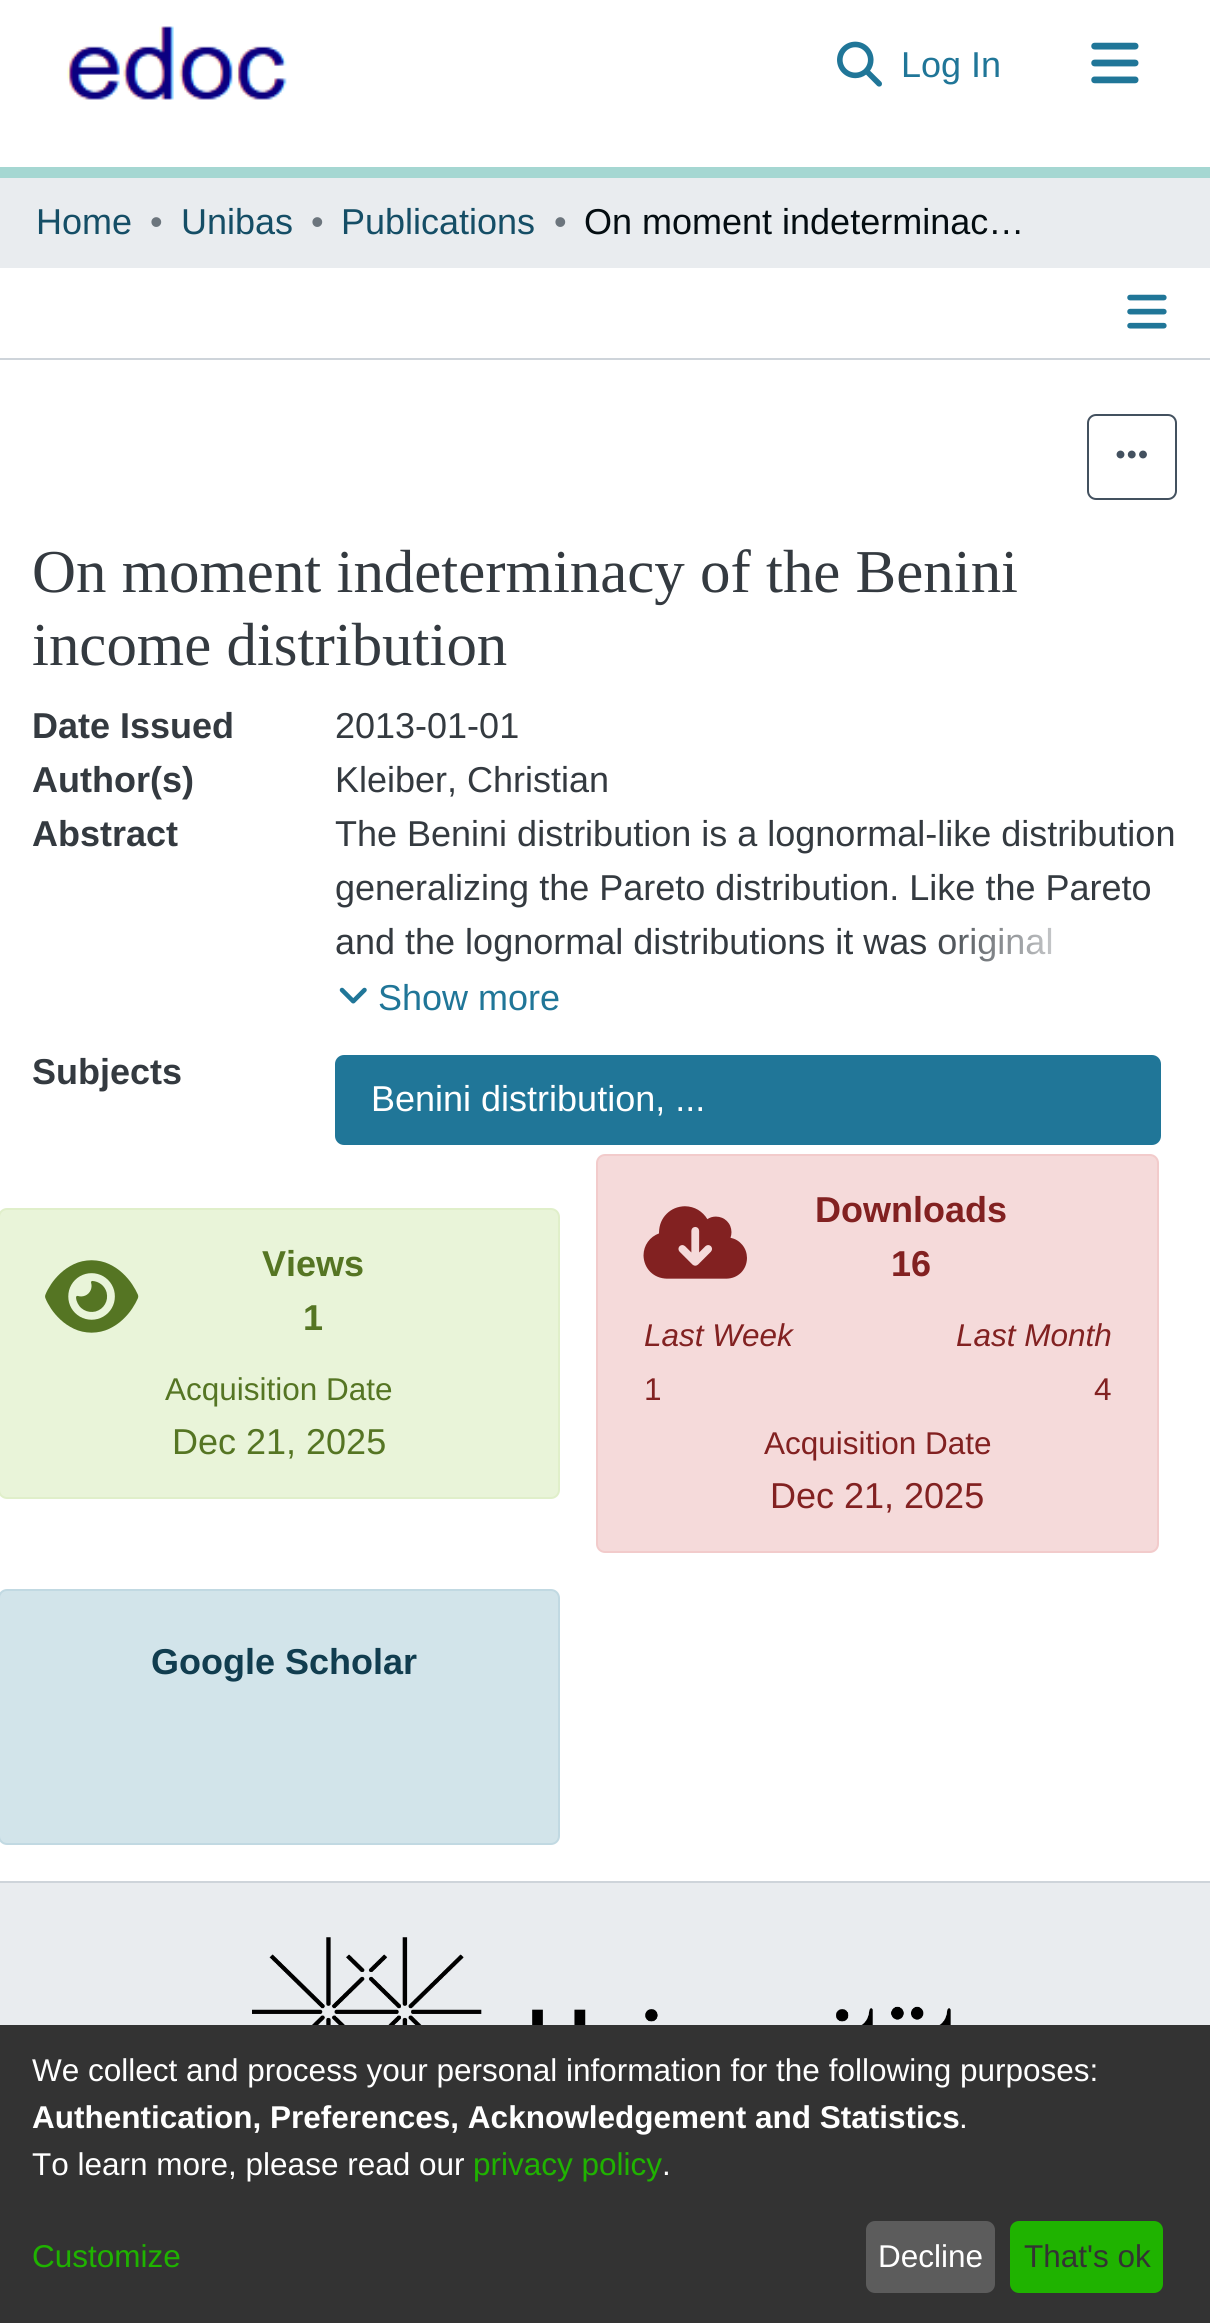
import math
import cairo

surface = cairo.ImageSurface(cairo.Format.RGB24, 1210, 2323)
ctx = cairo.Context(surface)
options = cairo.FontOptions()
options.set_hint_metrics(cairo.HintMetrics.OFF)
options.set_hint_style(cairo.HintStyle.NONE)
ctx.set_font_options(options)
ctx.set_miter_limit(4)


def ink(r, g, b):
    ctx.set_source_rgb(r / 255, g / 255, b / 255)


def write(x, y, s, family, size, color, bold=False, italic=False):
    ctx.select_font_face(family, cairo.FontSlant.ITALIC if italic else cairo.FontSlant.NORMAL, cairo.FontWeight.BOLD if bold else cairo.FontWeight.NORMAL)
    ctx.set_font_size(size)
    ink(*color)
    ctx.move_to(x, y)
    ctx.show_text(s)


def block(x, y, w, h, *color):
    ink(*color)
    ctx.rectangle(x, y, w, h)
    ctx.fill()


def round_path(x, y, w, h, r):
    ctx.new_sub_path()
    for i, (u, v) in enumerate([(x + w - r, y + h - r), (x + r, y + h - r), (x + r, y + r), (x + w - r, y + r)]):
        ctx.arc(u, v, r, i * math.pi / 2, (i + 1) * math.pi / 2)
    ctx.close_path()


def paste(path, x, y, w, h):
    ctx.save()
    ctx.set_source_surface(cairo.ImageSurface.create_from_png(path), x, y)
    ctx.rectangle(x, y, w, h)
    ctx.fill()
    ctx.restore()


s1 = dict(family="Liberation Sans", size=36, color=(32, 118, 152))
s2 = dict(family="Liberation Sans", size=36, color=(21, 78, 102))
s3 = dict(family="Liberation Sans", size=36, color=(108, 117, 125))
s4 = dict(family="Liberation Sans", size=36, color=(4, 13, 17))
s5 = dict(family="Liberation Serif", size=60.9, color=(52, 58, 64))
s6 = dict(family="Liberation Sans", size=36, color=(52, 58, 64), bold=True)
s7 = dict(family="Liberation Sans", size=36, color=(52, 58, 64))
s8 = dict(family="Liberation Sans", size=36, color=(255, 255, 255))
s9 = dict(family="Liberation Sans", size=36, color=(85, 117, 35), bold=True)
s10 = dict(family="Liberation Sans", size=31.5, color=(85, 117, 35))
s11 = dict(family="Liberation Sans", size=36, color=(85, 117, 35))
s12 = dict(family="Liberation Sans", size=36, color=(130, 33, 33), bold=True)
s13 = dict(family="Liberation Sans", size=31.5, color=(130, 33, 33), italic=True)
s14 = dict(family="Liberation Sans", size=31.5, color=(130, 33, 33))
s15 = dict(family="Liberation Sans", size=36, color=(130, 33, 33))
s16 = dict(family="Liberation Sans", size=36, color=(17, 61, 79), bold=True)
s17 = dict(family="Liberation Sans", size=31.5, color=(255, 255, 255))
s18 = dict(family="Liberation Sans", size=31.5, color=(255, 255, 255), bold=True)
s19 = dict(family="Liberation Sans", size=31.5, color=(31, 179, 0))
s20 = dict(family="Liberation Sans", size=31.5, color=(51, 51, 51))

ink(255, 255, 255)
ctx.paint()
block(0, 167, 1210, 11, 165, 215, 210)
paste("pic1.png", 67, 26, 220, 74)
paste("pic2.png", 837, 41, 45, 46)
write(901, 77, "Log In", **s1)
paste("pic3.png", 1091, 42, 48, 42)
block(0, 178, 1210, 90, 233, 236, 239)
write(36, 234, "Home", **s2)
write(150, 234, "•", **s3)
write(181, 234, "Unibas", **s2)
write(311, 234, "•", **s3)
write(341, 234, "Publications", **s2)
write(554, 234, "•", **s3)
write(584, 234, "On moment indeterminac…", **s4)
paste("pic4.png", 1127, 294, 40, 35)
block(0, 358, 1210, 2, 206, 212, 218)
round_path(1088, 415, 88, 84, 8)
ink(67, 81, 95)
ctx.stroke()
paste("pic5.png", 1116, 450, 31, 9)
write(32, 592, "On moment indeterminacy of the Benini", **s5)
write(32, 665, "income distribution", **s5)
write(32, 738, "Date Issued", **s6)
write(335, 738, "2013-01-01", **s7)
write(32, 792, "Author(s)", **s6)
write(335, 792, "Kleiber, Christian", **s7)
write(32, 846, "Abstract", **s6)
write(335, 846, "The Benini distribution is a lognormal-like distribution", **s7)
write(335, 900, "generalizing the Pareto distribution. Like the Pareto", **s7)
write(335, 954, "and the lognormal distributions it was original", **s7)
gradient = cairo.LinearGradient(927, 943, 1179, 943)
gradient.add_color_stop_rgba(0, 1, 1, 1, 0)
gradient.add_color_stop_rgba(0.7, 1, 1, 1, 1)
ctx.set_source(gradient)
ctx.rectangle(939, 927, 113, 35)
ctx.fill()
paste("pic6.png", 339, 987, 28, 17)
write(378, 1010, "Show more", **s1)
write(32, 1084, "Subjects", **s6)
ink(32, 118, 152)
round_path(335, 1055, 826, 90, 9)
ctx.fill()
write(371, 1111, "Benini distribution, ...", **s8)
ink(233, 244, 217)
round_path(-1, 1209, 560, 289, 8)
ctx.fill_preserve()
ink(224, 239, 202)
ctx.stroke()
paste("pic7.png", 45, 1260, 94, 73)
write(262, 1276, "Views", **s9)
write(303, 1330, "1", **s9)
write(165, 1400, "Acquisition Date", **s10)
write(172, 1454, "Dec 21, 2025", **s11)
ink(245, 218, 218)
round_path(597, 1155, 561, 397, 8)
ctx.fill_preserve()
ink(242, 203, 203)
ctx.stroke()
paste("pic8.png", 643, 1206, 104, 73)
write(815, 1222, "Downloads", **s12)
write(891, 1276, "16", **s12)
write(644, 1346, "Last Week", **s13)
write(644, 1400, "1", **s14)
write(956, 1346, "Last Month", **s13)
write(1094, 1400, "4", **s14)
write(764, 1454, "Acquisition Date", **s14)
write(770, 1508, "Dec 21, 2025", **s15)
ink(210, 228, 234)
round_path(-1, 1590, 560, 254, 8)
ctx.fill_preserve()
ink(193, 217, 226)
ctx.stroke()
write(151, 1674, "Google Scholar", **s16)
block(0, 1881, 1210, 2, 206, 212, 218)
block(0, 1883, 1210, 142, 233, 236, 239)
paste("pic9.png", 252, 1937, 699, 88)
block(0, 2025, 1210, 298, 51, 51, 51)
write(32, 2081, "We collect and process your personal information for the following purposes:", **s17)
write(32, 2128, "Authentication, Preferences, Acknowledgement and Statistics", **s18)
write(959, 2128, ".", **s17)
write(32, 2175, "To learn more, please read our", **s17)
write(473, 2175, "privacy policy", **s19)
write(662, 2175, ".", **s17)
write(32, 2267, "Customize", **s19)
ink(92, 92, 92)
round_path(866, 2221, 129, 72, 9)
ctx.fill()
write(878, 2267, "Decline", **s17)
ink(31, 179, 0)
round_path(1010, 2221, 153, 72, 9)
ctx.fill()
write(1024, 2267, "That's ok", **s20)
surface.write_to_png("screenshot.png")
